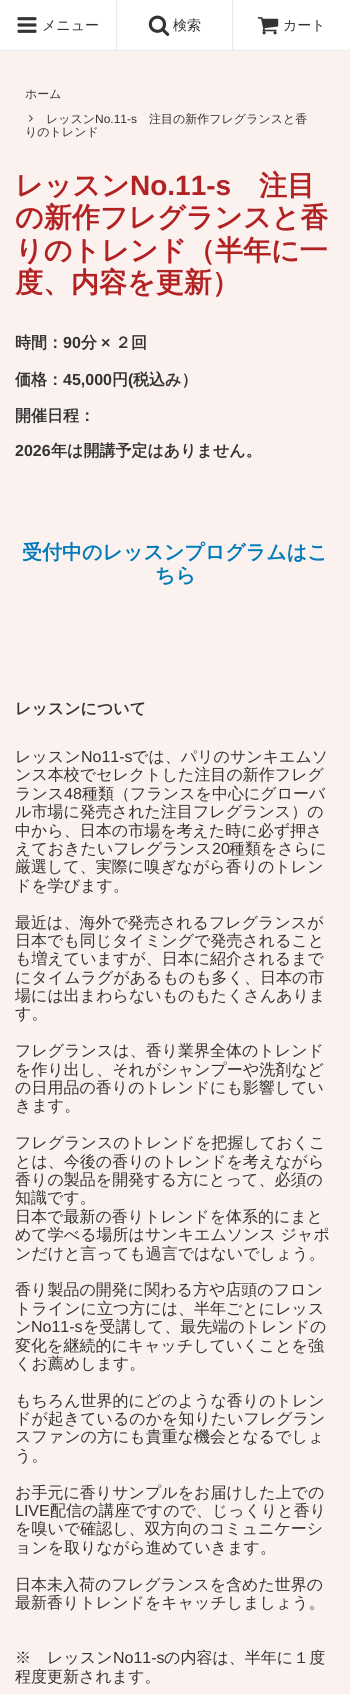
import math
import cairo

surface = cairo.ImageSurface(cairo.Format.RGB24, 350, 1694)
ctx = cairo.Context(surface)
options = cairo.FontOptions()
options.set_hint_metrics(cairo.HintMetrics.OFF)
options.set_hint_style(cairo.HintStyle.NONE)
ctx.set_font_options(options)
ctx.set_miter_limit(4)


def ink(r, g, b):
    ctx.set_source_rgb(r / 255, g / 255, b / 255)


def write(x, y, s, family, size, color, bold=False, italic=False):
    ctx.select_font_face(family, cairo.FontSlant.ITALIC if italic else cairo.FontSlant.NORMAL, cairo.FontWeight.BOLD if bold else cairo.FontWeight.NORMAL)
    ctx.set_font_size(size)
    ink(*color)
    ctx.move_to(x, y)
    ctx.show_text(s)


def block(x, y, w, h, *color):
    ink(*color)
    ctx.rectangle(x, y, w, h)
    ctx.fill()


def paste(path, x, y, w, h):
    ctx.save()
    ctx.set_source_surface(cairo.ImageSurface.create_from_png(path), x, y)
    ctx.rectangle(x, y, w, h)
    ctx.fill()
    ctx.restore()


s1 = dict(family="WenQuanYi Zen Hei Medium", size=14, color=(51, 51, 51))
s2 = dict(family="WenQuanYi Zen Hei Medium", size=12, color=(51, 51, 51))
s3 = dict(family="Liberation Sans", size=12, color=(51, 51, 51))
s4 = dict(family="WenQuanYi Zen Hei", size=28, color=(178, 34, 34), bold=True)
s5 = dict(family="Liberation Sans", size=28, color=(178, 34, 34), bold=True)
s6 = dict(family="WenQuanYi Zen Hei", size=16, color=(51, 51, 51), bold=True)
s7 = dict(family="Liberation Sans", size=16, color=(51, 51, 51), bold=True)
s8 = dict(family="WenQuanYi Zen Hei", size=20, color=(0, 122, 184), bold=True)
s9 = dict(family="WenQuanYi Zen Hei Medium", size=16, color=(51, 51, 51))
s10 = dict(family="Liberation Sans", size=16, color=(51, 51, 51))

ink(251, 241, 239)
ctx.paint()
block(0, 0, 350, 50, 255, 255, 255)
block(0, 50, 350, 1, 234, 234, 234)
block(116, 0, 1, 50, 234, 234, 234)
paste("pic1.png", 17, 17, 20, 16)
write(42, 30, "メニュー", **s1)
block(232, 0, 1, 50, 234, 234, 234)
paste("pic2.png", 148, 15, 22, 21)
write(173, 30, "検索", **s1)
paste("pic3.png", 257, 17, 22, 18)
write(283, 30, "カート", **s1)
write(25, 98, "ホーム", **s2)
paste("pic4.png", 29, 115, 4, 7)
write(46, 123, "レッスン", **s2)
write(95, 123, "No.11-s", **s3)
write(149, 123, "注目の新作フレグランスと香", **s2)
write(25, 136, "りのトレンド", **s2)
write(15, 195, "レッスン", **s4)
write(130, 195, "No.11-s", **s5)
write(259, 195, "注目", **s4)
write(15, 227, "の新作フレグランスと香", **s4)
write(15, 260, "りのトレンド（半年に一", **s4)
write(15, 292, "度、内容を更新）", **s4)
write(15, 348, "時間：", **s6)
write(63, 348, "90", **s7)
write(81, 348, "分", **s6)
write(101, 348, "×", **s7)
write(115, 348, "２回", **s6)
write(15, 385, "価格：", **s6)
write(63, 385, "45,000", **s7)
write(112, 385, "円", **s6)
write(128, 385, "(", **s7)
write(133, 385, "税込み）", **s6)
write(15, 421, "開催日程：", **s6)
write(15, 456, "2026", **s7)
write(51, 456, "年は開講予定はありません。", **s6)
write(22, 559, "受付中のレッスンプログラムはこ", **s8)
write(155, 582, "ちら", **s8)
write(15, 714, "レッスンについて", **s6)
write(15, 762, "レッスン", **s9)
write(81, 762, "No11-s", **s10)
write(132, 762, "では、パリのサンキエムソ", **s9)
write(15, 780, "ンス本校でセレクトした注目の新作フレグ", **s9)
write(15, 799, "ランス", **s9)
write(64, 799, "48", **s10)
write(82, 799, "種類（フランスを中心にグローバ", **s9)
write(15, 817, "ル市場に発売された注目フレグランス）の", **s9)
write(15, 836, "中から、日本の市場を考えた時に必ず押さ", **s9)
write(15, 854, "えておきたいフレグランス", **s9)
write(212, 854, "20", **s10)
write(229, 854, "種類をさらに", **s9)
write(15, 872, "厳選して、実際に嗅ぎながら香りのトレン", **s9)
write(15, 891, "ドを学びます。", **s9)
write(15, 928, "最近は、海外で発売されるフレグランスが", **s9)
write(15, 946, "日本でも同じタイミングで発売されること", **s9)
write(15, 964, "も増えていますが、日本に紹介されるまで", **s9)
write(15, 983, "にタイムラグがあるものも多く、日本の市", **s9)
write(15, 1001, "場には出まわらないものもたくさんありま", **s9)
write(15, 1019, "す。", **s9)
write(15, 1056, "フレグランスは、香り業界全体のトレンド", **s9)
write(15, 1075, "を作り出し、それがシャンプーや洗剤など", **s9)
write(15, 1093, "の日用品の香りのトレンドにも影響してい", **s9)
write(15, 1111, "きます。", **s9)
write(15, 1148, "フレグランスのトレンドを把握しておくこ", **s9)
write(15, 1167, "とは、今後の香りのトレンドを考えながら", **s9)
write(15, 1185, "香りの製品を開発する方にとって、必須の", **s9)
write(15, 1203, "知識です。", **s9)
write(15, 1222, "日本で最新の香りトレンドを体系的にまと", **s9)
write(15, 1240, "めて学べる場所はサンキエムソンス ジャポ", **s9)
write(15, 1259, "ンだけと言っても過言ではないでしょう。", **s9)
write(15, 1295, "香り製品の開発に関わる方や店頭のフロン", **s9)
write(15, 1314, "トラインに立つ方には、半年ごとにレッス", **s9)
write(15, 1332, "ン", **s9)
write(31, 1332, "No11-s", **s10)
write(83, 1332, "を受講して、最先端のトレンドの", **s9)
write(15, 1351, "変化を継続的にキャッチしていくことを強", **s9)
write(15, 1369, "くお薦めします。", **s9)
write(15, 1406, "もちろん世界的にどのような香りのトレン", **s9)
write(15, 1424, "ドが起きているのかを知りたいフレグラン", **s9)
write(15, 1442, "スファンの方にも貴重な機会となるでしょ", **s9)
write(15, 1461, "う。", **s9)
write(15, 1498, "お手元に香りサンプルをお届けした上での", **s9)
write(15, 1516, "LIVE", **s10)
write(50, 1516, "配信の講座ですので、じっくりと香り", **s9)
write(15, 1534, "を嗅いで確認し、双方向のコミュニケーシ", **s9)
write(15, 1553, "ョンを取りながら進めていきます。", **s9)
write(15, 1590, "日本未入荷のフレグランスを含めた世界の", **s9)
write(15, 1608, "最新香りトレンドをキャッチしましょう。", **s9)
write(15, 1663, "※　レッスン", **s9)
write(113, 1663, "No11-s", **s10)
write(164, 1663, "の内容は、半年に１度", **s9)
write(15, 1682, "程度更新されます。", **s9)
surface.write_to_png("screenshot.png")
